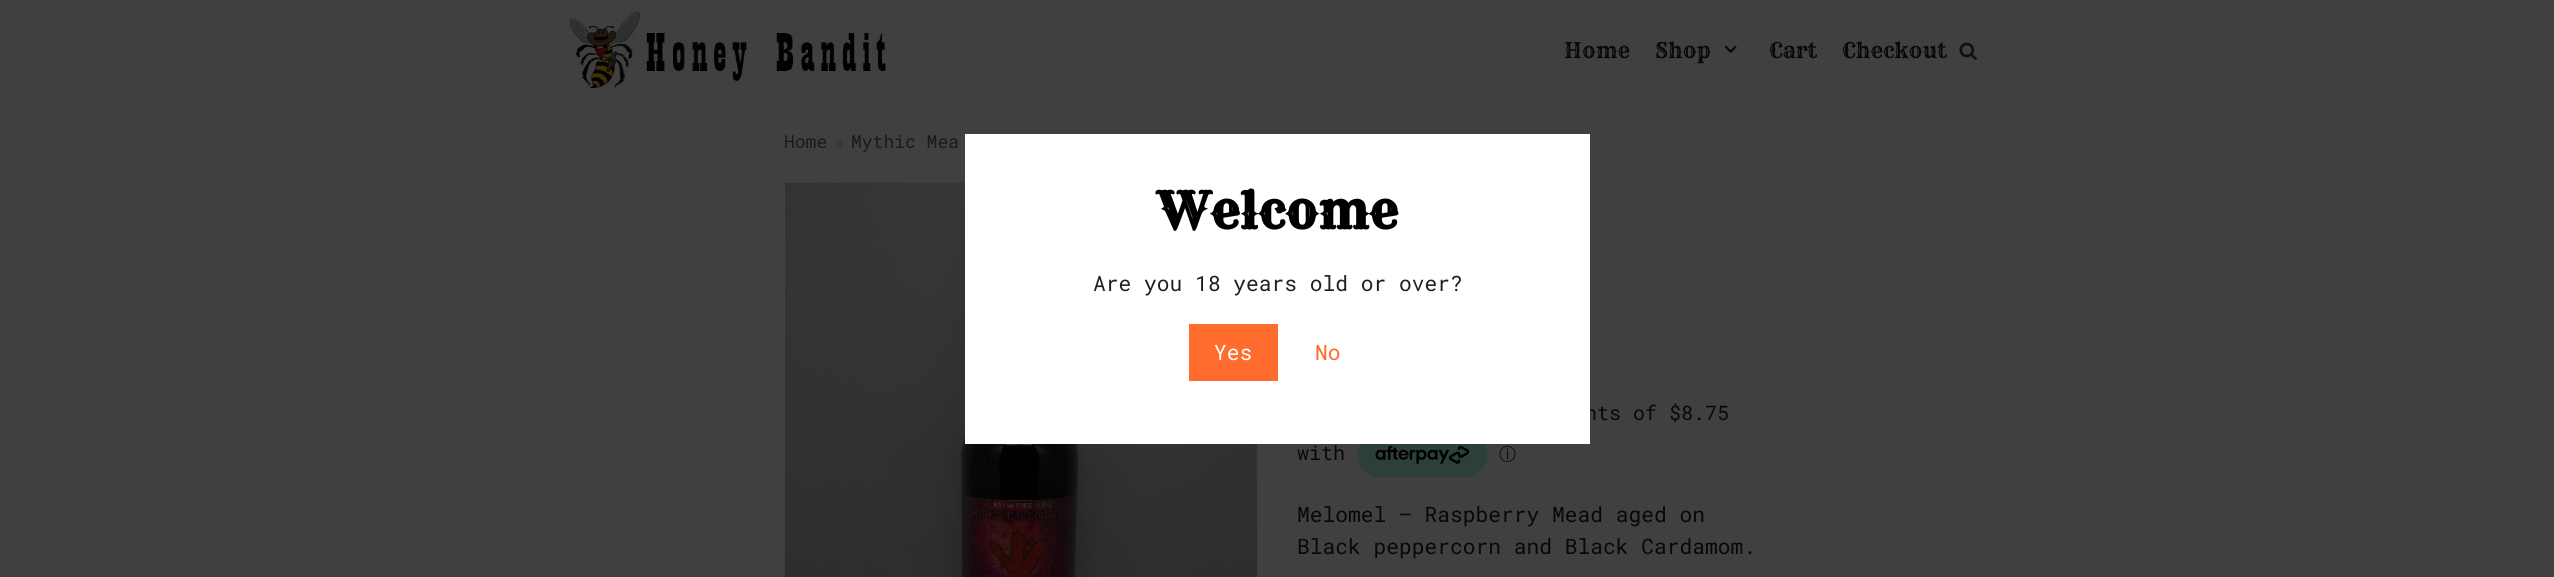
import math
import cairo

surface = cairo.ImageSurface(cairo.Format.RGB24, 2554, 577)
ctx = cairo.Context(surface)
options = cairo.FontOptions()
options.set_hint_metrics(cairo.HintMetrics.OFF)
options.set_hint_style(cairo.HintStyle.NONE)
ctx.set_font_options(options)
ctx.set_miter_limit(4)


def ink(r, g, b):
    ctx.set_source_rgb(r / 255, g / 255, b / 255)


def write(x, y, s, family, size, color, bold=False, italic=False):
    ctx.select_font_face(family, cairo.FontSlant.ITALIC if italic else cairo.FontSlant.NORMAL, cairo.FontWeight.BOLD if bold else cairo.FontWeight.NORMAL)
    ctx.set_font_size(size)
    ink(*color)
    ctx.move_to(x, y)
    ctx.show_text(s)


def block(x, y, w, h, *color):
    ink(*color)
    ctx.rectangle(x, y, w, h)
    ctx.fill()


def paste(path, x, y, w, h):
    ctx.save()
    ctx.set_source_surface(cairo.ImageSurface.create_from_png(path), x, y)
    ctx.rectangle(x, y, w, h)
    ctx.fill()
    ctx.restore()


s1 = dict(family="Rye", size=21.25, color=(8, 8, 8))
s2 = dict(family="Roboto Mono", size=18, color=(26, 26, 26))
s3 = dict(family="Roboto Mono", size=18, color=(47, 47, 47))
s4 = dict(family="Roboto Mono", size=20, color=(8, 8, 8))
s5 = dict(family="WenQuanYi Zen Hei Medium", size=17, color=(8, 8, 8))
s6 = dict(family="Roboto Mono", size=21.25, color=(8, 8, 8))
s7 = dict(family="Rye", size=50, color=(0, 0, 0), bold=True)
s8 = dict(family="Roboto Mono", size=21.25, color=(31, 32, 37))
s9 = dict(family="Roboto Mono", size=21.25, color=(255, 255, 255))
s10 = dict(family="Roboto Mono", size=21.25, color=(255, 108, 45))

ink(64, 64, 64)
ctx.paint()
paste("pic1.png", 566, 10, 322, 80)
write(1564, 58, "Home", **s1)
write(1655, 58, "Shop", **s1)
paste("pic2.png", 1724, 45, 13, 8)
write(1769, 58, "Cart", **s1)
write(1842, 58, "Checkout", **s1)
paste("pic3.png", 1959, 42, 18, 18)
write(784, 148, "Home", **s2)
write(834, 148, "»", **s3)
write(851, 148, "Mythic Mea", **s2)
paste("pic4.png", 785, 182, 473, 395)
write(1585, 420, "nts of $8.75", **s4)
write(1297, 460, "with", **s4)
paste("pic5.png", 1358, 444, 130, 34)
write(1499, 460, "ⓘ", **s5)
write(1297, 522, "Melomel – Raspberry Mead aged on", **s6)
write(1297, 554, "Black peppercorn and Black Cardamom.", **s6)
block(965, 134, 625, 310, 255, 255, 255)
write(1157, 229, "Welcome", **s7)
write(1093, 291, "Are you 18 years old or over?", **s8)
block(1189, 324, 89, 57, 255, 108, 45)
write(1214, 360, "Yes", **s9)
write(1315, 360, "No", **s10)
surface.write_to_png("screenshot.png")
